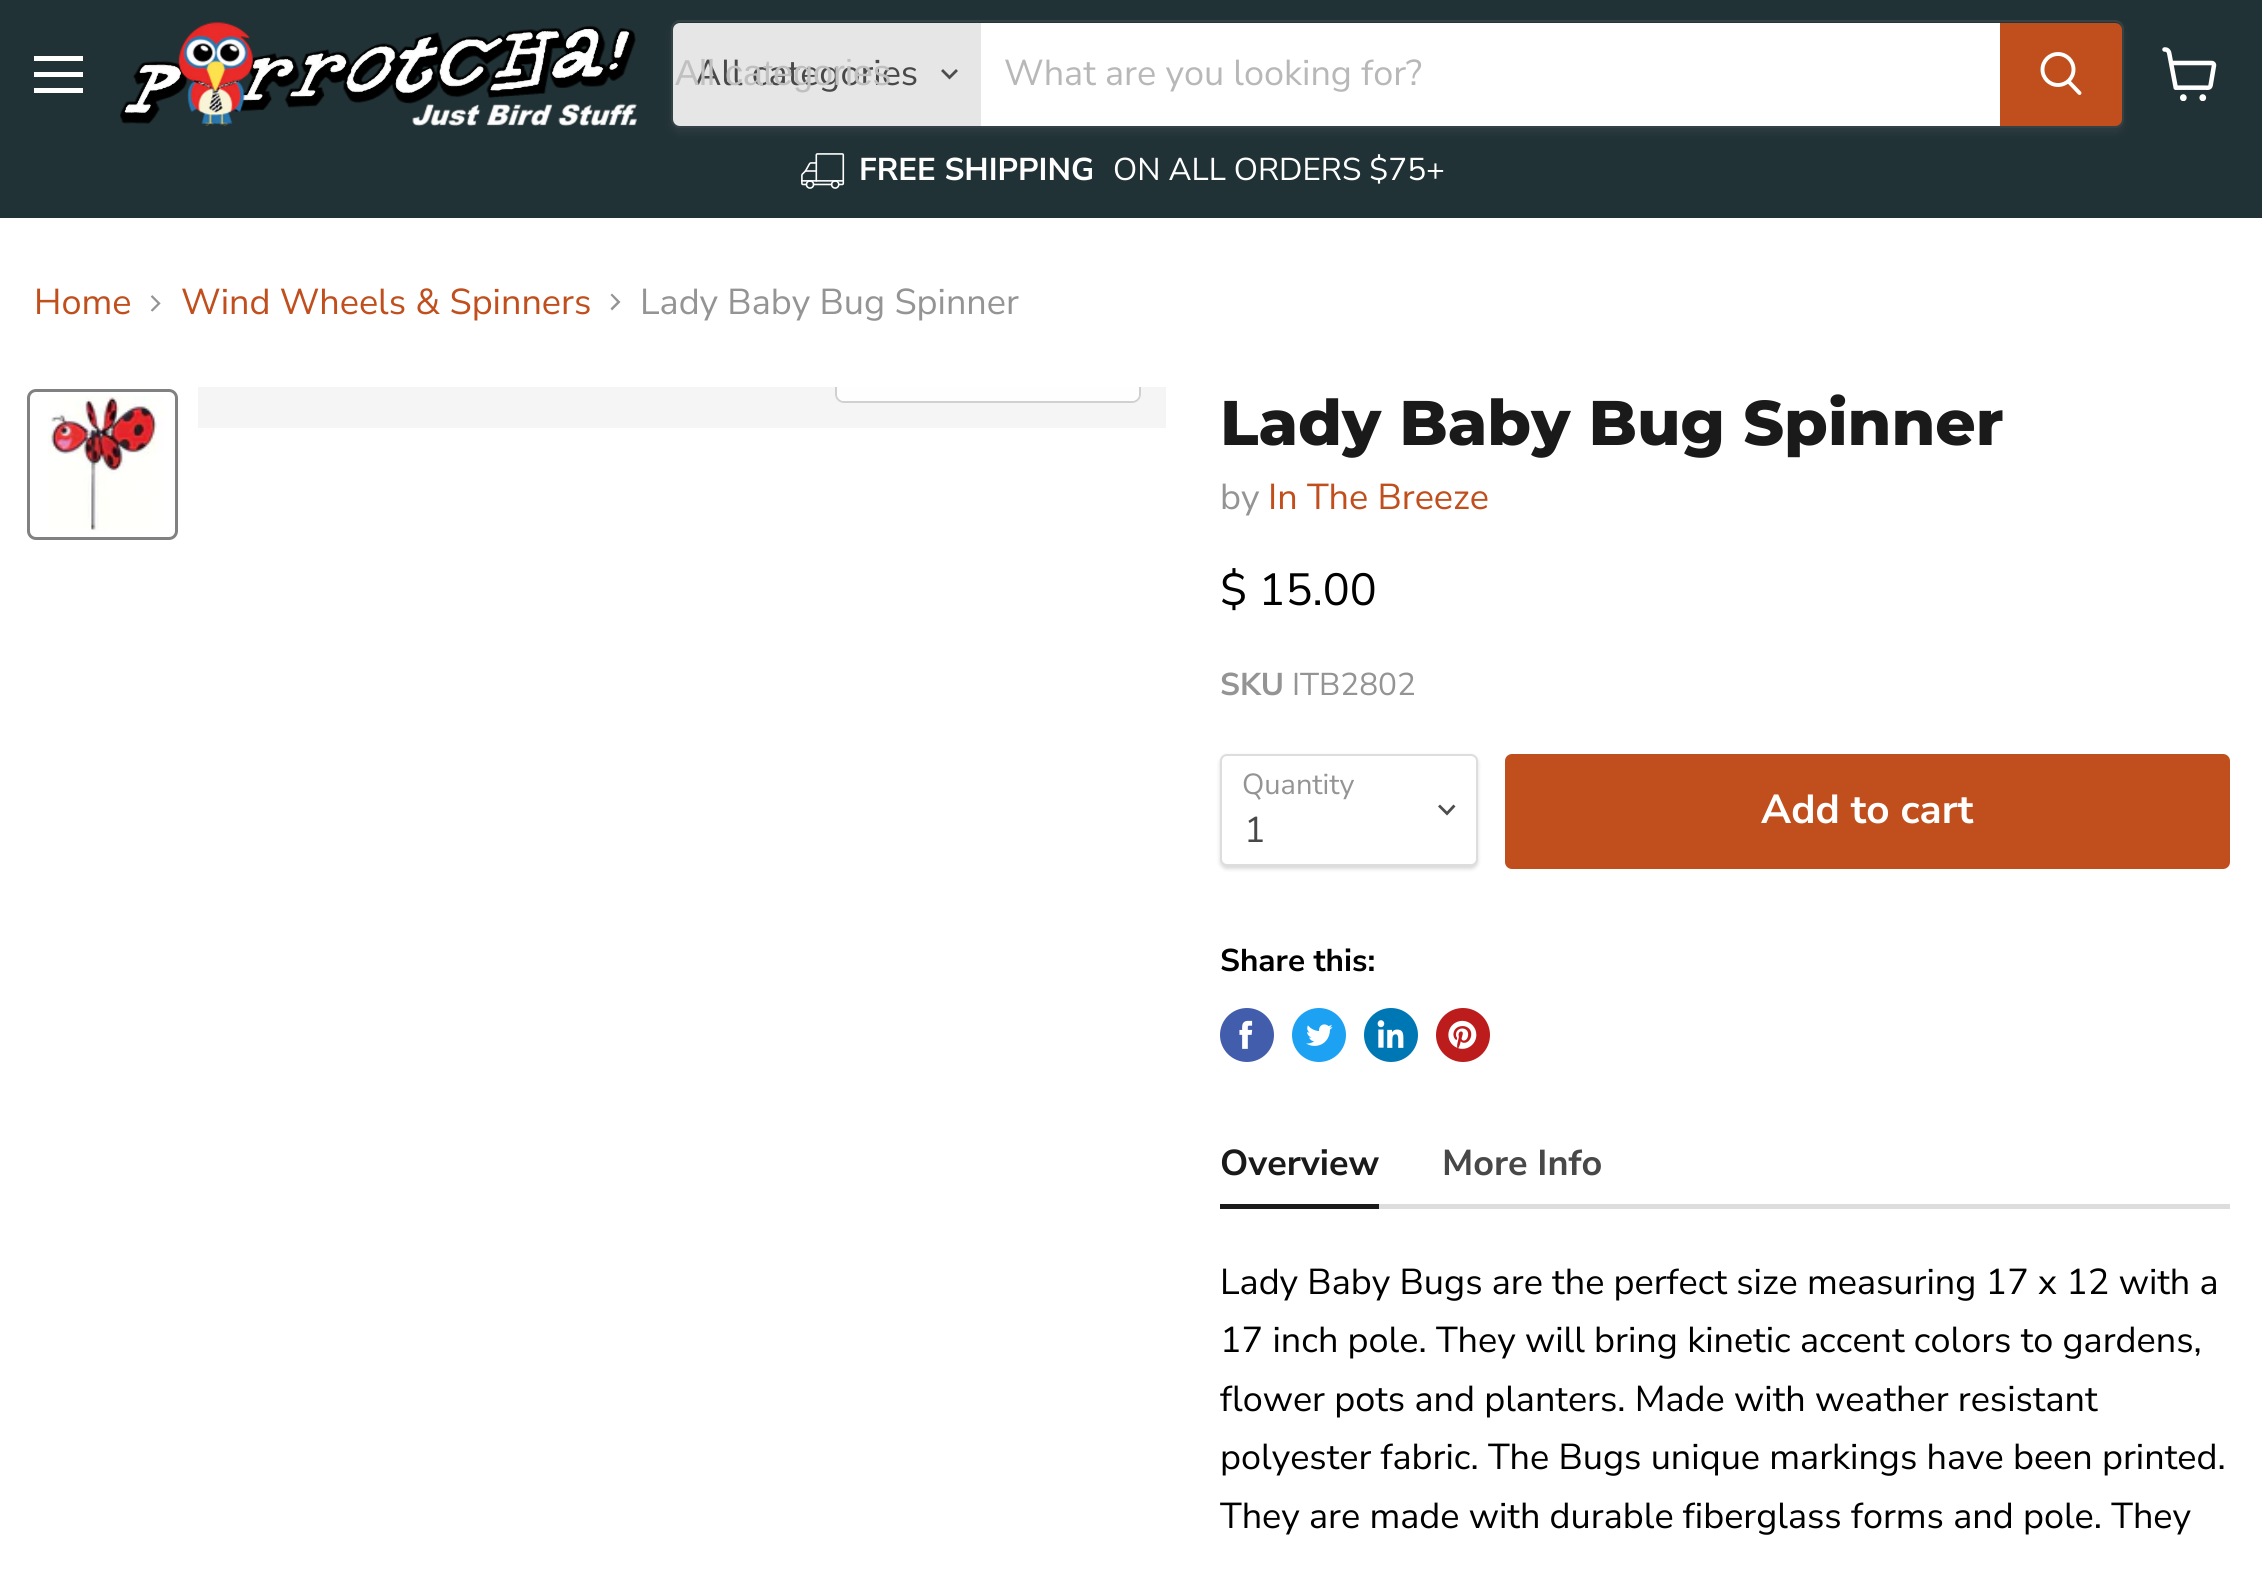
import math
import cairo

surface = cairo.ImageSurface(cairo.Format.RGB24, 2262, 1578)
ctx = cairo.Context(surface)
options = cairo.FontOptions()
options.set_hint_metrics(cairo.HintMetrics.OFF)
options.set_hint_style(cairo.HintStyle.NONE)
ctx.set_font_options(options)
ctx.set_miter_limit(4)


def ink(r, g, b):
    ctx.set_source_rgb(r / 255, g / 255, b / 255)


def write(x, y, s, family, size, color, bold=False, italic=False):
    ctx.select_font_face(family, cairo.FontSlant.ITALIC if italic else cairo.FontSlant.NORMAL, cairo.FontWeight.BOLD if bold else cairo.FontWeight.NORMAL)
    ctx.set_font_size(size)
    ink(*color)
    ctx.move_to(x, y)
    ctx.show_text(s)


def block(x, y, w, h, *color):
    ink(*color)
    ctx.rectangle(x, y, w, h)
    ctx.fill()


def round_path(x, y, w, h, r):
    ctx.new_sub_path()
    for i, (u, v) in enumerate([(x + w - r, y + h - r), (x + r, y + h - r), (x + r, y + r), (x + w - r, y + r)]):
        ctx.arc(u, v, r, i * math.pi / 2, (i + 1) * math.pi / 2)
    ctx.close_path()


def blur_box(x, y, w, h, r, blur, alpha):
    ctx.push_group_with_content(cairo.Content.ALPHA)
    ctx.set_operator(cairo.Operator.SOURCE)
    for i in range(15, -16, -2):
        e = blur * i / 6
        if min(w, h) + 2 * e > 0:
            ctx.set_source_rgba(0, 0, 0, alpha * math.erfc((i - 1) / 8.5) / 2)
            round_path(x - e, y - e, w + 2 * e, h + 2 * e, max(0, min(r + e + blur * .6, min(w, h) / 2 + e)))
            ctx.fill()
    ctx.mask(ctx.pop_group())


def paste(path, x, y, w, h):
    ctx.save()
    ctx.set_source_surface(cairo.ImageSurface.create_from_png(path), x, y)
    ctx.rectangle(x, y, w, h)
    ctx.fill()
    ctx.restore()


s1 = dict(family="Nunito Sans", size=36, color=(72, 72, 72))
s2 = dict(family="Liberation Sans", size=36, color=(192, 192, 192))
s3 = dict(family="Nunito Sans", size=36, color=(184, 184, 184))
s4 = dict(family="Nunito Sans", size=31.5, color=(255, 255, 255), bold=True)
s5 = dict(family="Nunito Sans", size=31.5, color=(255, 255, 255))
s6 = dict(family="Nunito Sans", size=36, color=(192, 79, 29))
s7 = dict(family="Nunito Sans", size=36, color=(148, 148, 148))
s8 = dict(family="Montserrat ExtraBold", size=63, color=(26, 26, 26))
s9 = dict(family="Nunito Sans", size=45, color=(0, 0, 0))
s10 = dict(family="Nunito Sans", size=31.5, color=(148, 148, 148), bold=True)
s11 = dict(family="Nunito Sans", size=31.5, color=(148, 148, 148))
s12 = dict(family="Nunito Sans", size=29, color=(148, 148, 148))
s13 = dict(family="Nunito Sans", size=40.5, color=(255, 255, 255), bold=True)
s14 = dict(family="Nunito Sans", size=31.5, color=(0, 0, 0), bold=True)
s15 = dict(family="Nunito Sans", size=36, color=(26, 26, 26), bold=True)
s16 = dict(family="Nunito Sans", size=36, color=(72, 72, 72), bold=True)
s17 = dict(family="Nunito Sans", size=36, color=(0, 0, 0))

ink(255, 255, 255)
ctx.paint()
block(0, 0, 2262, 218, 33, 50, 54)
block(34, 56, 49, 5, 255, 255, 255)
block(34, 72, 49, 5, 255, 255, 255)
block(34, 88, 49, 5, 255, 255, 255)
paste("pic1.png", 119, 22, 518, 104)
ink(128, 128, 128)
blur_box(671, 25, 1453, 108, 9, 3.5, 0.11)
round_path(672, 21, 1451, 106, 8)
ink(52, 66, 69)
ctx.stroke()
ink(230, 230, 230)
ctx.new_path()
ctx.move_to(680, 23)
ctx.line_to(981, 23)
ctx.line_to(981, 126)
ctx.line_to(680, 126)
ctx.curve_to(676, 126, 673, 123, 673, 119)
ctx.line_to(673, 30)
ctx.curve_to(673, 26, 676, 23, 680, 23)
ctx.close_path()
ctx.fill()
write(695, 85, "All categories", **s1)
write(675, 85, "All categories", **s2)
ctx.new_path()
ctx.move_to(949.5, 77.5)
ctx.line_to(956, 71)
ctx.move_to(949.5, 77.5)
ctx.line_to(943, 71)
ink(77, 77, 77)
ctx.set_line_width(2.8)
ctx.set_line_cap(cairo.LineCap.SQUARE)
ctx.stroke()
block(981, 23, 1019, 103, 255, 255, 255)
write(1004, 85, "What are you looking for?", **s3)
ink(192, 79, 29)
ctx.new_path()
ctx.move_to(2001, 24)
ctx.line_to(2115, 24)
ctx.curve_to(2118.5, 24, 2121, 26.5, 2121, 30)
ctx.line_to(2121, 119)
ctx.curve_to(2121, 122.5, 2118.5, 125, 2115, 125)
ctx.line_to(2001, 125)
ctx.close_path()
ctx.fill_preserve()
ctx.set_line_width(2)
ctx.set_line_cap(cairo.LineCap.BUTT)
ctx.stroke()
ctx.new_path()
ctx.move_to(2079.5, 93)
ctx.line_to(2069, 82)
ink(255, 255, 255)
ctx.set_line_width(3.9)
ctx.set_line_cap(cairo.LineCap.ROUND)
ctx.stroke()
ctx.arc(2058, 69.5, 15.5, 0, 2 * math.pi)
ctx.set_line_cap(cairo.LineCap.BUTT)
ctx.stroke()
paste("pic2.png", 801, 153, 44, 36)
write(859, 180, "FREE SHIPPING", **s4)
write(1113, 180, "ON ALL ORDERS $75+", **s5)
paste("pic3.png", 2162, 47, 55, 54)
write(34, 314, "Home", **s6)
paste("pic4.png", 150, 295, 11, 17)
write(181, 314, "Wind Wheels & Spinners", **s6)
ink(148, 148, 148)
ctx.set_fill_rule(cairo.FillRule.EVEN_ODD)
ctx.new_path()
ctx.move_to(610.5, 308.5)
ctx.line_to(612, 310.5)
ctx.line_to(620.5, 302)
ctx.line_to(612, 293.5)
ctx.line_to(610.5, 295)
ctx.line_to(617, 302)
ctx.close_path()
ctx.fill()
write(640, 314, "Lady Baby Bug Spinner", **s7)
round_path(28.5, 390.5, 148, 148, 7.5)
ink(129, 129, 129)
ctx.set_line_width(3)
ctx.stroke()
paste("pic5.png", 48, 396, 116, 135)
block(198, 387, 968, 41, 245, 245, 245)
ctx.save()
ctx.set_fill_rule(cairo.FillRule.WINDING)
ctx.rectangle(198, 387, 968, 41)
ctx.clip()
round_path(836, 336, 304, 66, 8)
ink(208, 208, 208)
ctx.set_line_width(2)
ctx.stroke()
ctx.restore()
ctx.set_source_rgba(1, 1, 1, 0.9)
ctx.new_path()
ctx.move_to(837, 387)
ctx.line_to(1139, 387)
ctx.line_to(1139, 394)
ctx.curve_to(1139, 398, 1136, 401, 1132, 401)
ctx.line_to(844, 401)
ctx.curve_to(840, 401, 837, 398, 837, 394)
ctx.close_path()
ctx.fill()
write(1220, 445, "Lady Baby Bug Spinner", **s8)
write(1220, 509, "by", **s7)
write(1268, 509, "In The Breeze", **s6)
write(1220, 605, "$ 15.00", **s9)
write(1220, 695, "SKU", **s10)
write(1292, 695, "ITB2802", **s11)
ink(0, 0, 0)
blur_box(1220, 756, 258, 113, 7, 2, 0.15)
ink(255, 255, 255)
round_path(1221, 755, 256, 110, 6)
ctx.fill_preserve()
ink(221, 221, 221)
ctx.set_line_width(2)
ctx.stroke()
write(1242, 794, "Quantity", **s12)
ctx.new_path()
ctx.move_to(1447, 813.5)
ctx.line_to(1453.5, 806.5)
ctx.move_to(1447, 813.5)
ctx.line_to(1440, 806.5)
ink(77, 77, 77)
ctx.set_line_width(2.8)
ctx.set_line_cap(cairo.LineCap.SQUARE)
ctx.stroke()
write(1244, 842, "1", **s1)
ink(192, 79, 29)
round_path(1506, 755, 723, 113, 6)
ctx.fill_preserve()
ctx.set_line_width(2)
ctx.set_line_cap(cairo.LineCap.BUTT)
ctx.stroke()
write(1761, 823, "Add to cart", **s13)
write(1220, 971, "Share this:", **s14)
ink(66, 93, 171)
ctx.new_path()
ctx.arc(1247, 1035, 27, 0, 2 * math.pi)
ctx.fill()
paste("pic6.png", 1239, 1020, 14, 29)
ink(29, 161, 242)
ctx.arc(1319, 1035, 27, 0, 2 * math.pi)
ctx.fill()
paste("pic7.png", 1306, 1024, 27, 22)
ink(0, 119, 181)
ctx.arc(1391, 1035, 27, 0, 2 * math.pi)
ctx.fill()
paste("pic8.png", 1377, 1020, 27, 28)
ink(189, 28, 28)
ctx.arc(1463, 1035, 27, 0, 2 * math.pi)
ctx.fill()
paste("pic9.png", 1448, 1020, 29, 29)
block(1379, 1204, 851, 5, 221, 221, 221)
write(1220, 1175, "Overview", **s15)
block(1220, 1204, 159, 5, 26, 26, 26)
write(1442, 1175, "More Info", **s16)
write(1220, 1294, "Lady Baby Bugs are the perfect size measuring 17 x 12 with a", **s17)
write(1220, 1352, "17 inch pole. They will bring kinetic accent colors to gardens,", **s17)
write(1220, 1411, "flower pots and planters. Made with weather resistant", **s17)
write(1220, 1469, "polyester fabric. The Bugs unique markings have been printed.", **s17)
write(1220, 1528, "They are made with durable fiberglass forms and pole. They", **s17)
surface.write_to_png("screenshot.png")
